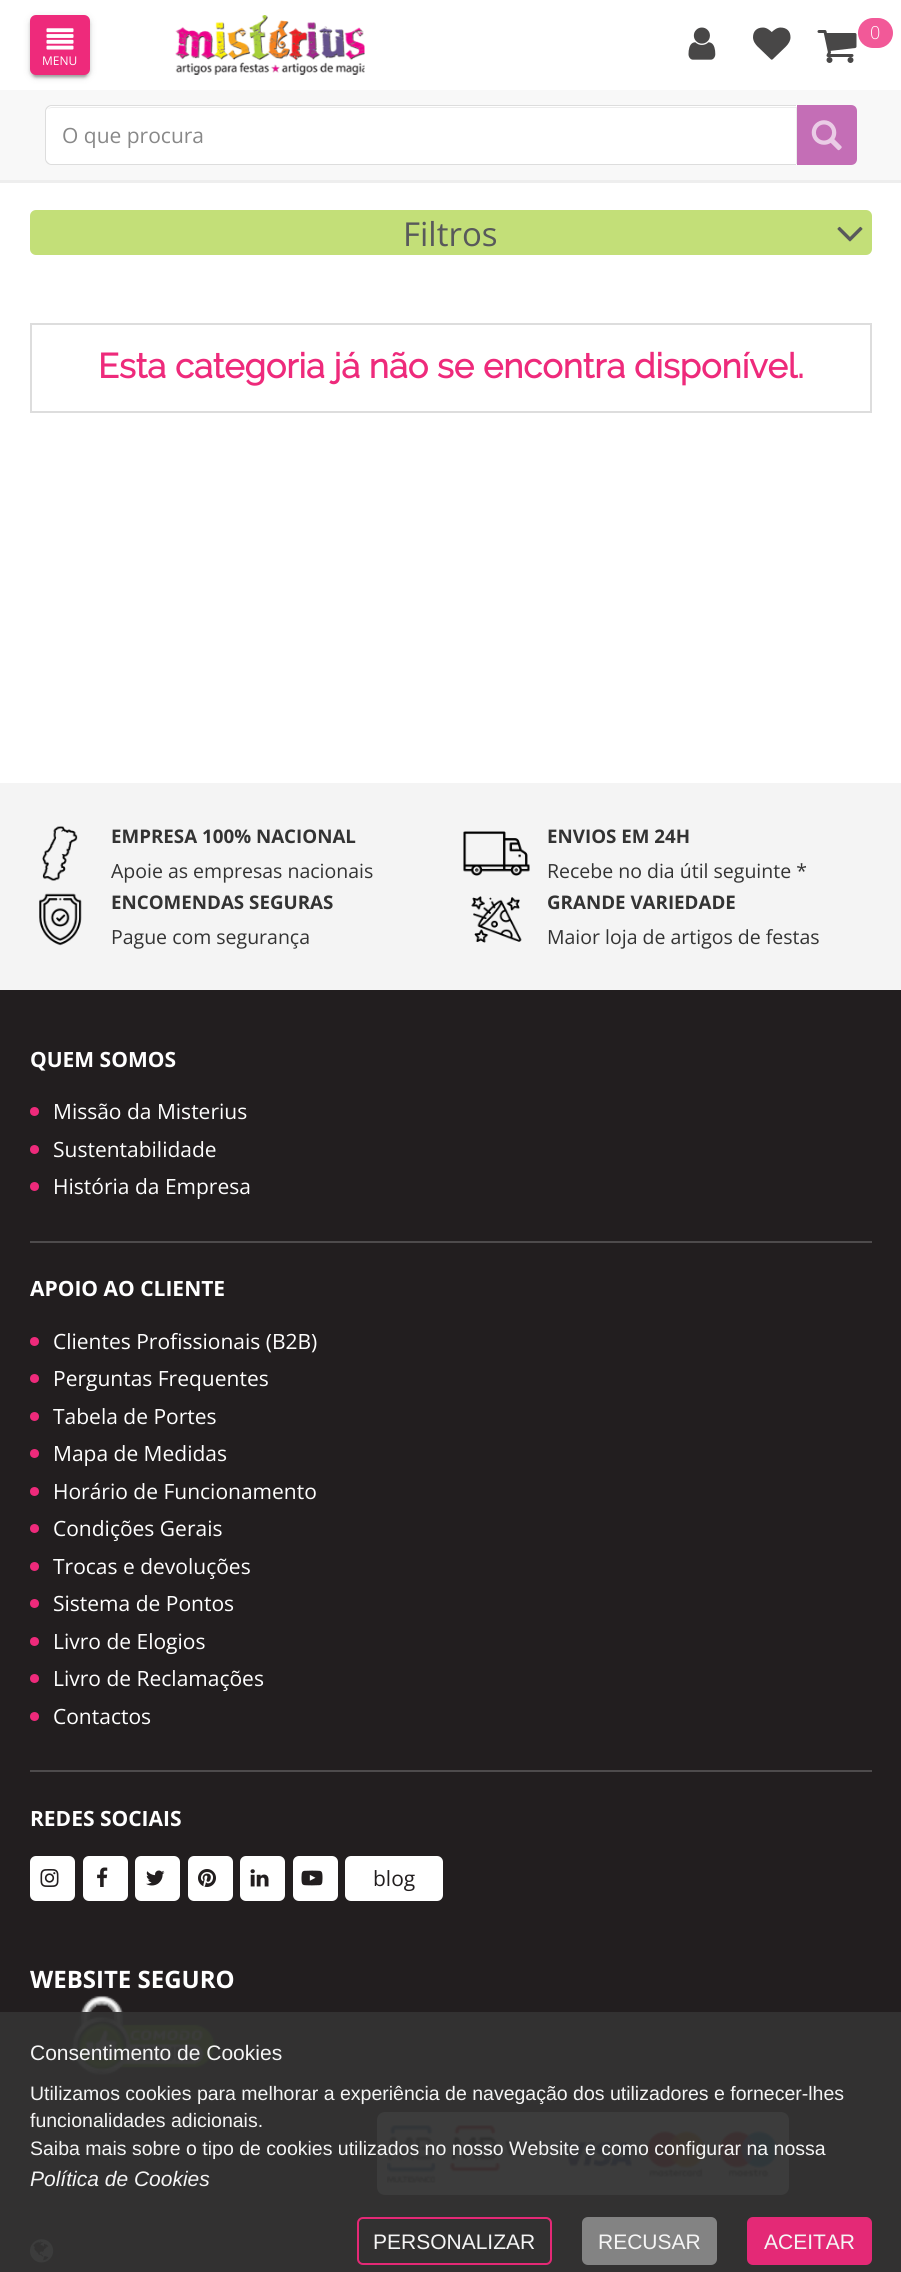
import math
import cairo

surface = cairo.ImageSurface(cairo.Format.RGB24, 901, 2272)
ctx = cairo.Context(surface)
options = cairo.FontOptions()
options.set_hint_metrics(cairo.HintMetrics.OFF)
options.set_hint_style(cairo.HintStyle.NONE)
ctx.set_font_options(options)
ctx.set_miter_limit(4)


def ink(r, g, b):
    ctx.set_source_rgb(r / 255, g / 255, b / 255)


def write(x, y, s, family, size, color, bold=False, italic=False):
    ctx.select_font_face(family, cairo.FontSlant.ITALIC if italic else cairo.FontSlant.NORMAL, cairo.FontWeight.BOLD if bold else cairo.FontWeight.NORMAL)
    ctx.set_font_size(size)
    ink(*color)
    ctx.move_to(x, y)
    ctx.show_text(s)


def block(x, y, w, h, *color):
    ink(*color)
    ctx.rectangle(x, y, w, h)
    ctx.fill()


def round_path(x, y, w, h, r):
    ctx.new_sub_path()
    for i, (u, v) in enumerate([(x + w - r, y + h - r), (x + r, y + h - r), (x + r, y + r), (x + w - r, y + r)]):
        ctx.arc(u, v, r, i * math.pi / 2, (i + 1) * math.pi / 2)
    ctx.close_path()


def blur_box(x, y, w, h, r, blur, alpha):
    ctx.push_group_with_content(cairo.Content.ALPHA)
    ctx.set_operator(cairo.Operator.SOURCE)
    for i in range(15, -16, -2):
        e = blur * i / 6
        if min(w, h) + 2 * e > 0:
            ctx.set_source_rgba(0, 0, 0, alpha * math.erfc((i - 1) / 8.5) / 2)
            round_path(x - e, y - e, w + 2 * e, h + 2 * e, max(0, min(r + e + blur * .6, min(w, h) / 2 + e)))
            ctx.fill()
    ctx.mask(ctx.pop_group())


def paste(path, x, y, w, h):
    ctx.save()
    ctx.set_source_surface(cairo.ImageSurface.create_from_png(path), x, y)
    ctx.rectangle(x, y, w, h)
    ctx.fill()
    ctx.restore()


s1 = dict(family="Open Sans Light", size=18, color=(255, 255, 255))
s2 = dict(family="Open Sans", size=12, color=(255, 255, 255))
s3 = dict(family="Open Sans", size=21, color=(136, 136, 136))
s4 = dict(family="Open Sans", size=33, color=(88, 89, 91))
s5 = dict(family="Raleway", size=34.5, color=(238, 42, 123), bold=True)
s6 = dict(family="Open Sans", size=18.75, color=(51, 51, 51), bold=True)
s7 = dict(family="Open Sans", size=19.5, color=(51, 51, 51))
s8 = dict(family="Open Sans", size=21, color=(255, 255, 255), bold=True)
s9 = dict(family="Open Sans", size=21, color=(255, 255, 255))
s10 = dict(family="Open Sans", size=21, color=(34, 30, 31))
s11 = dict(family="Open Sans", size=24, color=(255, 255, 255), bold=True)
s12 = dict(family="Liberation Sans", size=21, color=(245, 245, 245))
s13 = dict(family="Liberation Sans", size=19.5, color=(245, 245, 245))
s14 = dict(family="Liberation Sans", size=21, color=(245, 245, 245), italic=True)

ink(255, 255, 255)
ctx.paint()
ink(238, 238, 238)
ctx.new_path()
ctx.move_to(0, 180)
ctx.line_to(0, 183)
ctx.line_to(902, 183)
ctx.line_to(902, 3)
ctx.line_to(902, 180)
ctx.close_path()
ctx.fill()
paste("pic1.png", 175, 15, 190, 60)
paste("pic2.png", 688, 27, 28, 33)
paste("pic3.png", 753, 27, 38, 33)
paste("pic4.png", 817, 30, 40, 33)
ink(242, 89, 152)
round_path(858, 18, 35, 30, 15)
ctx.fill()
write(870, 39, "0", **s1)
ink(0, 0, 0)
blur_box(33, 23, 54, 54, 3, 1, 0.2)
blur_box(30, 17, 60, 60, 6, 4, 0.12)
blur_box(30, 18, 60, 60, 6, 1.5, 0.14)
ink(238, 42, 123)
round_path(31, 16, 58, 58, 5)
ctx.fill_preserve()
ctx.stroke()
paste("pic5.png", 46, 28, 28, 22)
write(42, 65, "MENU", **s2)
block(0, 90, 901, 90, 248, 248, 248)
ink(255, 255, 255)
ctx.new_path()
ctx.move_to(51, 105)
ctx.line_to(797, 105)
ctx.line_to(797, 165)
ctx.line_to(51, 165)
ctx.curve_to(47.5, 165, 45, 162.5, 45, 159)
ctx.line_to(45, 111)
ctx.curve_to(45, 107.5, 47.5, 105, 51, 105)
ctx.close_path()
ctx.fill()
ink(236, 236, 236)
ctx.new_path()
ctx.move_to(51, 108)
ctx.line_to(796, 108)
ctx.line_to(796, 164)
ctx.line_to(797, 164)
ctx.line_to(797, 107)
ctx.line_to(52, 107)
ctx.curve_to(50, 107, 49, 108, 48, 109)
ctx.close_path()
ctx.fill()
ink(221, 221, 221)
ctx.set_fill_rule(cairo.FillRule.EVEN_ODD)
ctx.new_path()
ctx.move_to(51, 105)
ctx.line_to(796, 105)
ctx.line_to(796, 165)
ctx.line_to(51, 165)
ctx.curve_to(48, 165, 45, 162, 45, 159)
ctx.line_to(45, 111)
ctx.curve_to(45, 108, 48, 105, 51, 105)
ctx.close_path()
ctx.move_to(51, 106)
ctx.line_to(796, 106)
ctx.line_to(796, 164)
ctx.line_to(51, 164)
ctx.curve_to(49, 164, 46, 161, 46, 159)
ctx.line_to(46, 111)
ctx.curve_to(46, 109, 49, 106, 51, 106)
ctx.close_path()
ctx.fill()
write(62, 143, "O que procura", **s3)
ink(196, 110, 182)
ctx.new_path()
ctx.move_to(798, 106)
ctx.line_to(851, 106)
ctx.curve_to(854, 106, 856, 108, 856, 111)
ctx.line_to(856, 159)
ctx.curve_to(856, 162, 854, 164, 851, 164)
ctx.line_to(798, 164)
ctx.close_path()
ctx.fill_preserve()
ctx.stroke()
paste("pic6.png", 811, 120, 31, 31)
ink(195, 223, 120)
round_path(30, 210, 842, 45, 6)
ctx.fill()
write(403, 246, "Filtros", **s4)
paste("pic7.png", 837, 226, 26, 16)
ctx.rectangle(31, 324, 840, 88)
ink(221, 221, 221)
ctx.stroke()
write(98, 378, "Esta categoria já não se encontra disponível.", **s5)
block(0, 783, 901, 207, 244, 244, 244)
paste("pic8.png", 42, 826, 36, 55)
write(111, 843, "EMPRESA 100% NACIONAL", **s6)
write(111, 878, "Apoie as empresas nacionais", **s7)
paste("pic9.png", 463, 831, 67, 45)
write(547, 843, "ENVIOS EM 24H", **s6)
write(547, 878, "Recebe no dia útil seguinte *", **s7)
paste("pic10.png", 39, 893, 43, 53)
write(111, 909, "ENCOMENDAS SEGURAS", **s6)
write(111, 944, "Pague com segurança", **s7)
paste("pic11.png", 471, 896, 51, 47)
write(547, 909, "GRANDE VARIEDADE", **s6)
write(547, 944, "Maior loja de artigos de festas", **s7)
block(0, 990, 901, 1282, 34, 30, 31)
block(30, 1241, 842, 2, 78, 75, 76)
write(30, 1067, "QUEM SOMOS", **s8)
ink(238, 42, 123)
ctx.new_path()
ctx.arc(34.5, 1111.5, 3.5, 0, 2 * math.pi)
ctx.fill_preserve()
ctx.stroke()
write(53, 1119, "Missão da Misterius", **s9)
ink(238, 42, 123)
ctx.new_path()
ctx.arc(34.5, 1149.5, 3.5, 0, 2 * math.pi)
ctx.fill_preserve()
ctx.stroke()
write(53, 1157, "Sustentabilidade", **s9)
ink(238, 42, 123)
ctx.new_path()
ctx.arc(34.5, 1186.5, 3.5, 0, 2 * math.pi)
ctx.fill_preserve()
ctx.stroke()
write(53, 1194, "História da Empresa", **s9)
block(30, 1770, 842, 2, 78, 75, 76)
write(30, 1296, "APOIO AO CLIENTE", **s8)
ink(238, 42, 123)
ctx.new_path()
ctx.arc(34.5, 1341.5, 3.5, 0, 2 * math.pi)
ctx.fill_preserve()
ctx.stroke()
write(53, 1349, "Clientes Profissionais (B2B)", **s9)
ink(238, 42, 123)
ctx.new_path()
ctx.arc(34.5, 1378.5, 3.5, 0, 2 * math.pi)
ctx.fill_preserve()
ctx.stroke()
write(53, 1386, "Perguntas Frequentes", **s9)
ink(238, 42, 123)
ctx.new_path()
ctx.arc(34.5, 1416.5, 3.5, 0, 2 * math.pi)
ctx.fill_preserve()
ctx.stroke()
write(53, 1424, "Tabela de Portes", **s9)
ink(238, 42, 123)
ctx.new_path()
ctx.arc(34.5, 1453.5, 3.5, 0, 2 * math.pi)
ctx.fill_preserve()
ctx.stroke()
write(53, 1461, "Mapa de Medidas", **s9)
ink(238, 42, 123)
ctx.new_path()
ctx.arc(34.5, 1491.5, 3.5, 0, 2 * math.pi)
ctx.fill_preserve()
ctx.stroke()
write(53, 1499, "Horário de Funcionamento", **s9)
ink(238, 42, 123)
ctx.new_path()
ctx.arc(34.5, 1528.5, 3.5, 0, 2 * math.pi)
ctx.fill_preserve()
ctx.stroke()
write(53, 1536, "Condições Gerais", **s9)
ink(238, 42, 123)
ctx.new_path()
ctx.arc(34.5, 1566.5, 3.5, 0, 2 * math.pi)
ctx.fill_preserve()
ctx.stroke()
write(53, 1574, "Trocas e devoluções", **s9)
ink(238, 42, 123)
ctx.new_path()
ctx.arc(34.5, 1603.5, 3.5, 0, 2 * math.pi)
ctx.fill_preserve()
ctx.stroke()
write(53, 1611, "Sistema de Pontos", **s9)
ink(238, 42, 123)
ctx.new_path()
ctx.arc(34.5, 1641.5, 3.5, 0, 2 * math.pi)
ctx.fill_preserve()
ctx.stroke()
write(53, 1649, "Livro de Elogios", **s9)
ink(238, 42, 123)
ctx.new_path()
ctx.arc(34.5, 1678.5, 3.5, 0, 2 * math.pi)
ctx.fill_preserve()
ctx.stroke()
write(53, 1686, "Livro de Reclamações", **s9)
ink(238, 42, 123)
ctx.new_path()
ctx.arc(34.5, 1716.5, 3.5, 0, 2 * math.pi)
ctx.fill_preserve()
ctx.stroke()
write(53, 1724, "Contactos", **s9)
write(30, 1826, "REDES SOCIAIS", **s8)
round_path(30, 1856, 45, 45, 6)
ctx.fill()
paste("pic12.png", 40, 1869, 19, 18)
round_path(83, 1856, 45, 45, 6)
ctx.fill()
paste("pic13.png", 97, 1867, 11, 20)
round_path(135, 1856, 45, 45, 6)
ctx.fill()
paste("pic14.png", 146, 1870, 19, 16)
round_path(188, 1856, 45, 45, 6)
ctx.fill()
paste("pic15.png", 198, 1869, 18, 18)
round_path(240, 1856, 45, 45, 6)
ctx.fill()
paste("pic16.png", 250, 1869, 19, 18)
round_path(293, 1856, 45, 45, 6)
ctx.fill()
paste("pic17.png", 301, 1870, 22, 16)
round_path(345, 1856, 98, 45, 6)
ctx.fill()
write(373, 1886, "blog", **s10)
write(30, 1988, "WEBSITE SEGURO", **s11)
paste("pic18.png", 71, 1995, 144, 80)
round_path(377, 2112, 412, 83, 8)
ctx.fill()
paste("pic19.png", 387, 2125, 391, 58)
paste("pic20.png", 30, 2239, 24, 24)
ctx.set_source_rgba(0.2, 0.2, 0.2, 0.95)
ctx.rectangle(0, 2012, 901, 260)
ctx.fill()
write(30, 2060, "Consentimento de Cookies", **s12)
write(30, 2100, "Utilizamos cookies para melhorar a experiência de navegação dos utilizadores e fornecer-lhes", **s13)
write(30, 2127, "funcionalidades adicionais.", **s13)
write(30, 2155, "Saiba mais sobre o tipo de cookies utilizados no nosso Website e como configurar na nossa", **s13)
write(30, 2186, "Política de Cookies", **s14)
round_path(358, 2218, 193, 46, 5)
ink(228, 41, 118)
ctx.stroke()
write(373, 2249, "PERSONALIZAR", **s12)
ink(131, 131, 131)
round_path(583, 2218, 133, 46, 5)
ctx.fill_preserve()
ctx.stroke()
write(598, 2249, "RECUSAR", **s12)
ink(228, 41, 118)
round_path(748, 2218, 123, 46, 5)
ctx.fill_preserve()
ctx.stroke()
write(764, 2249, "ACEITAR", **s12)
surface.write_to_png("screenshot.png")
